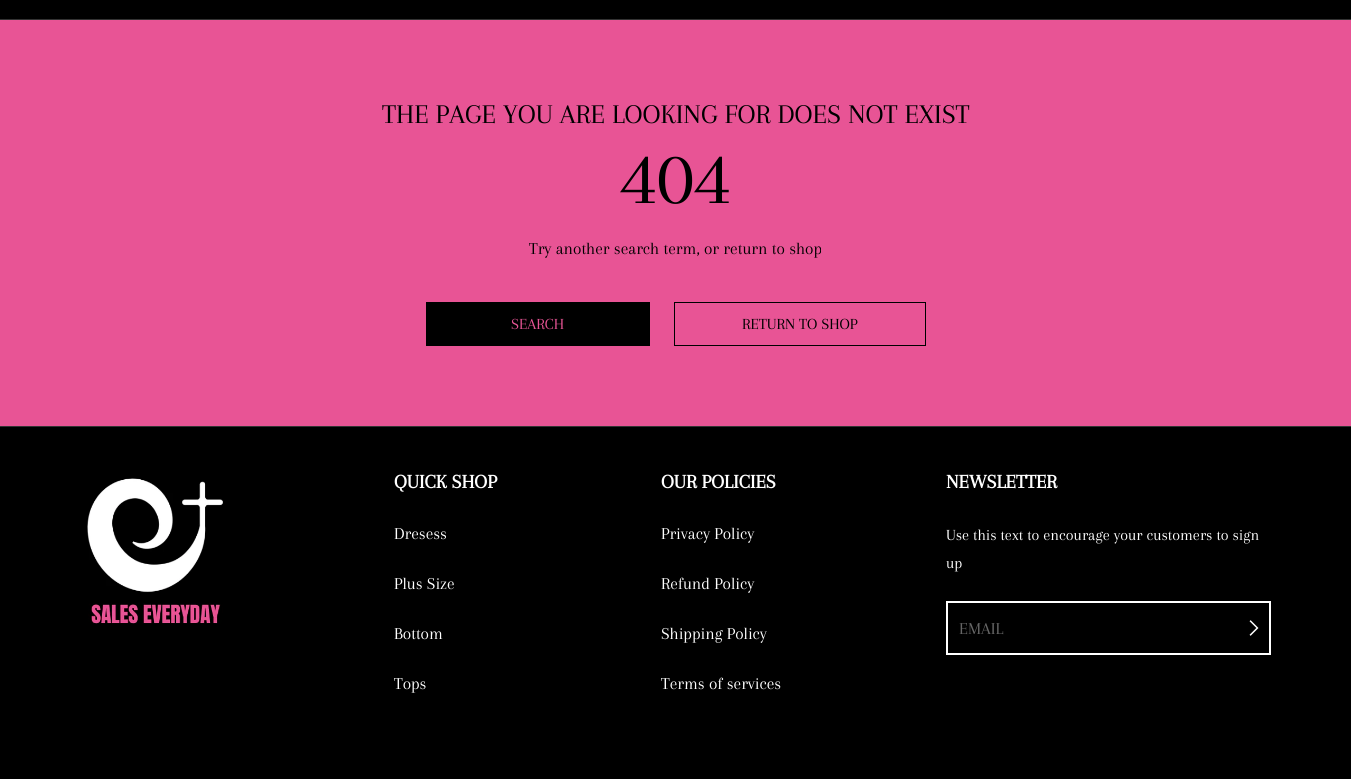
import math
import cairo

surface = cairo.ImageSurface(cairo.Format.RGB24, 1351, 779)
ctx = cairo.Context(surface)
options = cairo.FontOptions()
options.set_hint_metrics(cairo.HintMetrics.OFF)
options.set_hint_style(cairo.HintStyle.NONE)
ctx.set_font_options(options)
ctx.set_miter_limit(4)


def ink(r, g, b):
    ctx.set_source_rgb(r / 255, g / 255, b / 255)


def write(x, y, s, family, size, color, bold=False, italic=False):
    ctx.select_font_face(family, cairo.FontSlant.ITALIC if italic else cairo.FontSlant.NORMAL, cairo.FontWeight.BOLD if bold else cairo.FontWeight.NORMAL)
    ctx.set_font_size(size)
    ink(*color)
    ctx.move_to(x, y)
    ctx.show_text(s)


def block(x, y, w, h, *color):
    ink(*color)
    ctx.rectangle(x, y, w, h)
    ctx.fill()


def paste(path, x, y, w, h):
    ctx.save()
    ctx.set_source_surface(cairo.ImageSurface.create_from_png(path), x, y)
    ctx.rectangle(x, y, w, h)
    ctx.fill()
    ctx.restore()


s1 = dict(family="Arapey", size=28, color=(0, 0, 0))
s2 = dict(family="Arapey", size=80, color=(0, 0, 0))
s3 = dict(family="Arapey", size=17.25, color=(0, 0, 0))
s4 = dict(family="Arapey", size=16, color=(232, 84, 149))
s5 = dict(family="Arapey", size=16, color=(0, 0, 0))
s6 = dict(family="Arapey", size=20, color=(255, 255, 255), bold=True)
s7 = dict(family="Arapey", size=17.25, color=(255, 255, 255))
s8 = dict(family="Arapey", size=16, color=(255, 255, 255))
s9 = dict(family="Arapey", size=17.25, color=(102, 102, 102))

ink(232, 84, 149)
ctx.paint()
block(0, 0, 1351, 19, 0, 0, 0)
block(0, 19, 1351, 1, 51, 51, 51)
write(382, 123, "THE PAGE YOU ARE LOOKING FOR DOES NOT EXIST", **s1)
write(620, 203, "404", **s2)
write(529, 254, "Try another search term, or return to shop", **s3)
ctx.rectangle(426.5, 302.5, 223, 43)
ctx.set_line_width(1)
ctx.stroke()
block(427, 303, 222, 42, 0, 0, 0)
write(511, 329, "SEARCH", **s4)
ctx.rectangle(674.5, 302.5, 251, 43)
ink(0, 0, 0)
ctx.stroke()
write(742, 329, "RETURN TO SHOP", **s5)
block(0, 427, 1351, 352, 0, 0, 0)
block(0, 426, 1351, 1, 51, 51, 51)
paste("pic1.png", 87, 478, 136, 146)
write(394, 488, "QUICK SHOP", **s6)
write(394, 539, "Dresess", **s7)
write(394, 589, "Plus Size", **s7)
write(394, 639, "Bottom", **s7)
write(394, 689, "Tops", **s7)
write(661, 488, "OUR POLICIES", **s6)
write(661, 539, "Privacy Policy", **s7)
write(661, 589, "Refund Policy", **s7)
write(661, 639, "Shipping Policy", **s7)
write(661, 689, "Terms of services", **s7)
write(946, 488, "NEWSLETTER", **s6)
write(946, 540, "Use this text to encourage your customers to sign", **s8)
write(946, 568, "up", **s8)
ctx.rectangle(947, 602, 323, 52)
ctx.set_line_width(2)
ctx.stroke()
write(959, 634, "EMAIL", **s9)
paste("pic2.png", 1249, 620, 10, 16)
surface.write_to_png("screenshot.png")
